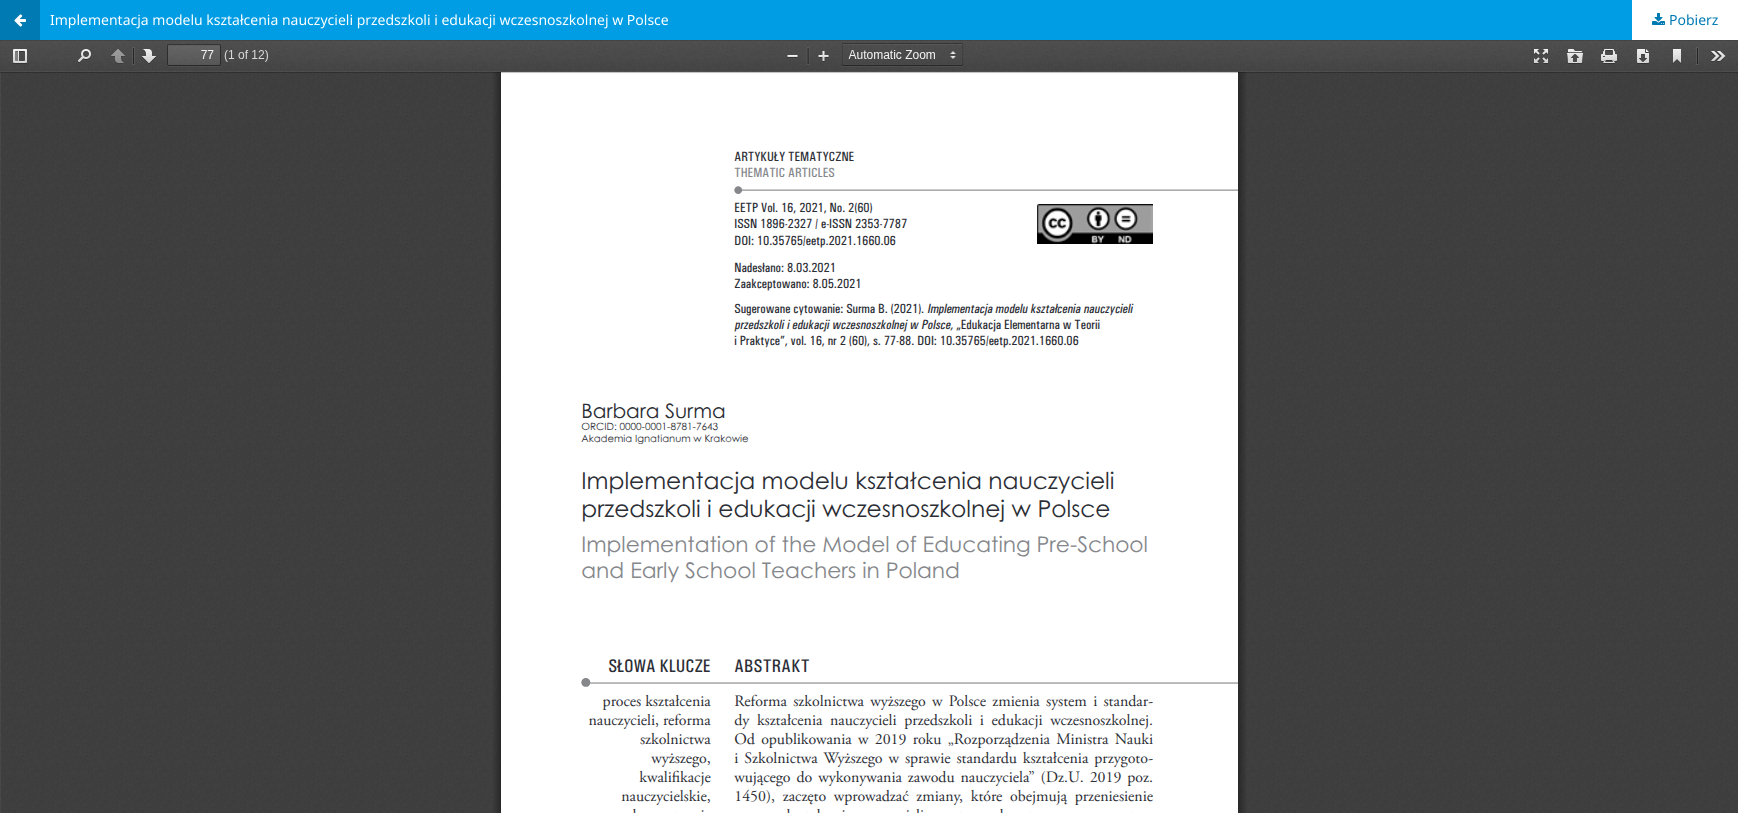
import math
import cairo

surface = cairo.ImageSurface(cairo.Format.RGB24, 1738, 813)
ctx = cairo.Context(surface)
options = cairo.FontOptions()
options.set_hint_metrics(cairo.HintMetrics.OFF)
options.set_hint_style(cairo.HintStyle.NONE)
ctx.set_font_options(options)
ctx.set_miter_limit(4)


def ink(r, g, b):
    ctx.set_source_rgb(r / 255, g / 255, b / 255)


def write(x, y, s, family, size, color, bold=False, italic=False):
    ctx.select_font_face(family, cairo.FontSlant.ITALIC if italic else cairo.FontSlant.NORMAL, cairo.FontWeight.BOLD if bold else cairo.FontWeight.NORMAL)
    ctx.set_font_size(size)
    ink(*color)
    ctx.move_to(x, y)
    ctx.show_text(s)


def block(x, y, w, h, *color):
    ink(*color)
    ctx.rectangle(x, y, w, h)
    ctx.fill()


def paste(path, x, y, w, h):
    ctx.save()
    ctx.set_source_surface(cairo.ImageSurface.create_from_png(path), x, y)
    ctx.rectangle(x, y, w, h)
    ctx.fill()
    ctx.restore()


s1 = dict(family="Noto Sans", size=14, color=(255, 255, 255))
s2 = dict(family="Noto Sans", size=14, color=(0, 122, 178))

ink(255, 255, 255)
ctx.paint()
block(40, 0, 1592, 40, 0, 157, 229)
block(0, 0, 40, 40, 0, 122, 178)
paste("pic1.png", 14, 14, 12, 13)
write(50, 25, "Implementacja modelu kształcenia nauczycieli przedszkoli i edukacji wczesnoszkolnej w Polsce", **s1)
paste("pic2.png", 1652, 13, 13, 12)
write(1669, 25, "Pobierz", **s2)
paste("pic3.png", 0, 40, 1738, 773)
surface.write_to_png("screenshot.png")
